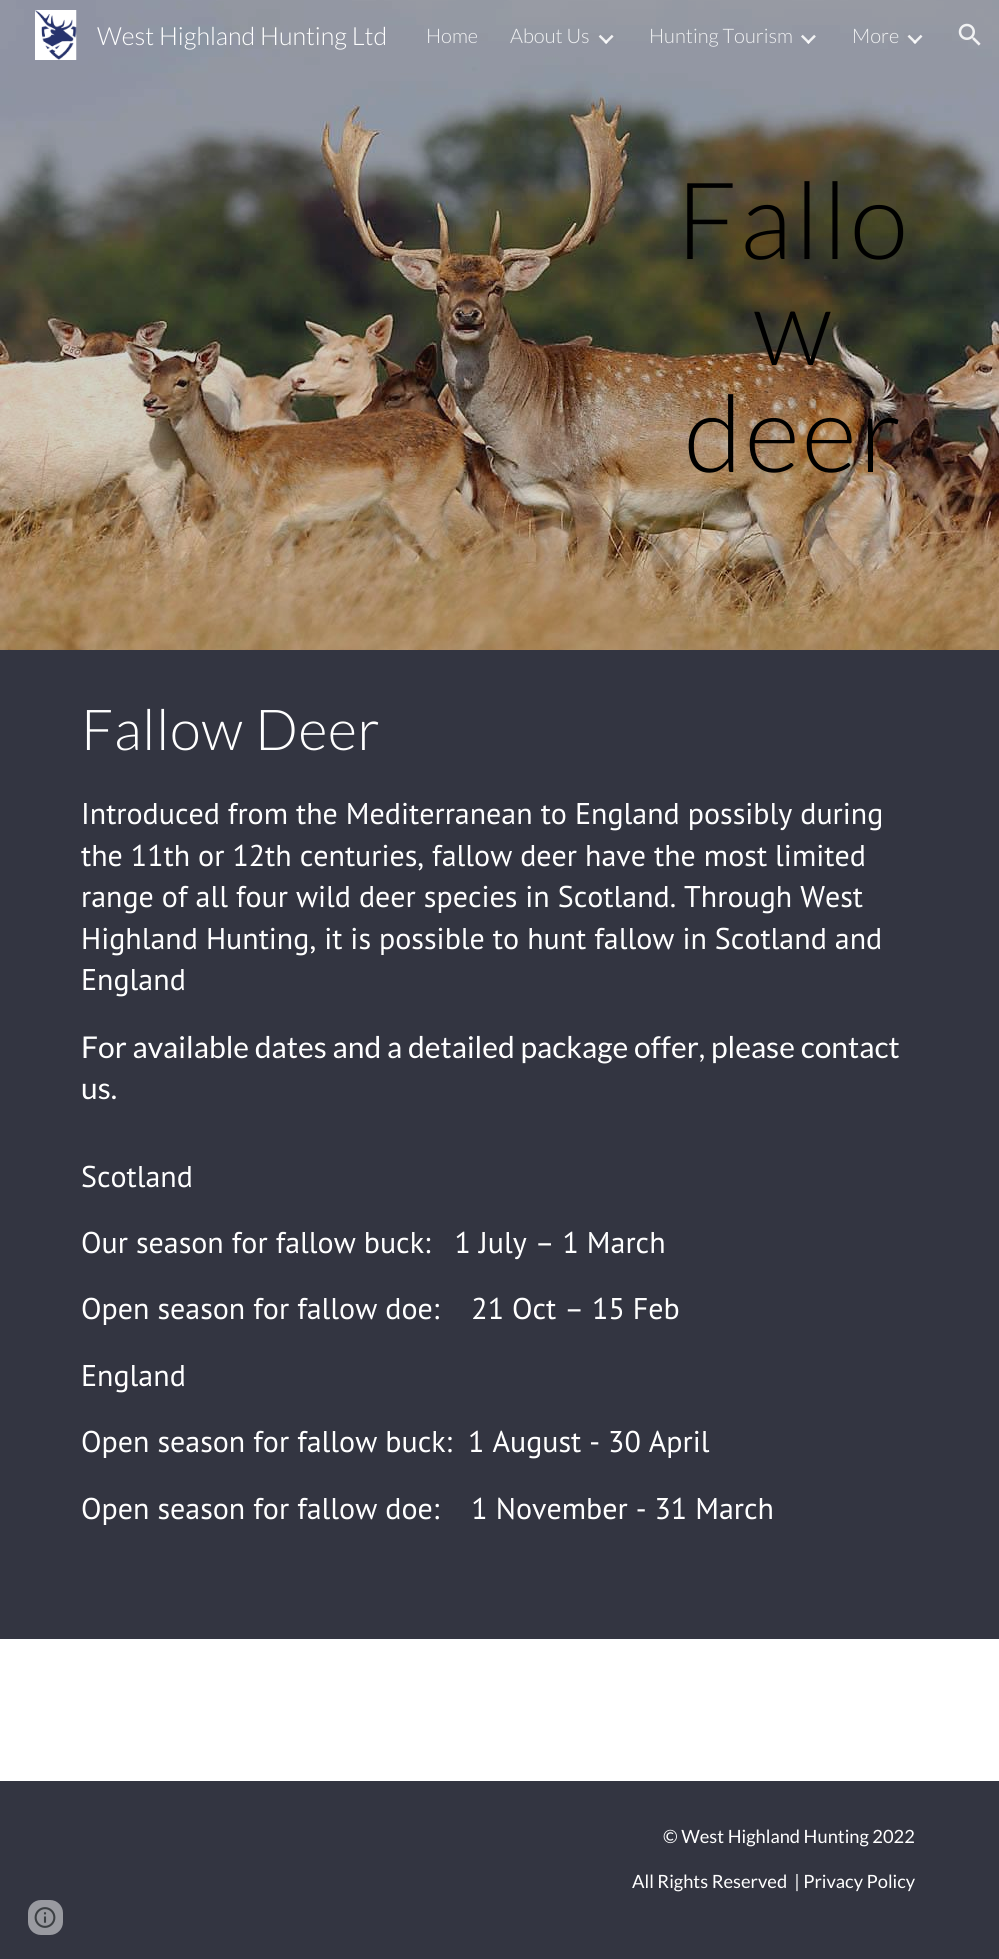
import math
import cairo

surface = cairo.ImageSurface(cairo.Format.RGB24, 999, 1959)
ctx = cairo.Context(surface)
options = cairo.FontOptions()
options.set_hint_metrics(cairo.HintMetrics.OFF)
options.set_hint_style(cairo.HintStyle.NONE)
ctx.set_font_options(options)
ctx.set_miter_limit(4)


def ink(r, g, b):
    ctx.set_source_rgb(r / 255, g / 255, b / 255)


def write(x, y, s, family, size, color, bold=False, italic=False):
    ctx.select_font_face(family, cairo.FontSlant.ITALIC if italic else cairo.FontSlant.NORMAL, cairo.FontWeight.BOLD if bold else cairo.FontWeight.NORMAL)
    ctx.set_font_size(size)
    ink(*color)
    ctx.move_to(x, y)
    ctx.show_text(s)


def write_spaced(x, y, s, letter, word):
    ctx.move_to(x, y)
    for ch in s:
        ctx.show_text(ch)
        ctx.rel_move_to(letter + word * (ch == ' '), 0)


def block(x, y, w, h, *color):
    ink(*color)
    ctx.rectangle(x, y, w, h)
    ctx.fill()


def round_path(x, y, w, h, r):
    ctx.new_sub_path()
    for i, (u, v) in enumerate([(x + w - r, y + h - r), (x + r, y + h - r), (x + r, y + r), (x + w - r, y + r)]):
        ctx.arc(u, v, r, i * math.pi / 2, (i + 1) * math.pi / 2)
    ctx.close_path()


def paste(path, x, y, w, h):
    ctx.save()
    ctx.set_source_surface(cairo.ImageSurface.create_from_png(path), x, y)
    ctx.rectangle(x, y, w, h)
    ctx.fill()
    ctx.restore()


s1 = dict(family="Lato Light", size=25, color=(255, 255, 255))
s2 = dict(family="Lato Light", size=20, color=(241, 242, 243))
s3 = dict(family="PT Sans", size=30, color=(255, 255, 255))
s4 = dict(family="Lato", size=30, color=(255, 255, 255))
s5 = dict(family="Lato", size=18.3, color=(255, 255, 255))

ink(255, 255, 255)
ctx.paint()
paste("pic6.png", 0, 0, 999, 650)
paste("pic1.png", 35, 10, 42, 50)
write(97, 45, "West Highland Hunting Ltd", **s1)
write(426, 43, "Home", **s2)
write(510, 43, "About Us", **s2)
paste("pic2.png", 598, 34, 16, 10)
write(649, 43, "Hunting Tourism", **s2)
paste("pic3.png", 801, 34, 15, 10)
write(852, 43, "More", **s2)
paste("pic4.png", 907, 34, 16, 10)
paste("pic5.png", 958, 23, 23, 23)
ctx.set_font_size(107)
ink(0, 0, 0)
write_spaced(676, 259, "Fallo", 2.5, 0)
write_spaced(753, 365, "w", 2.5, 0)
write_spaced(684, 472, "deer", 2.5, 0)
block(0, 650, 999, 989, 51, 53, 65)
ctx.set_font_size(56.5)
ink(255, 255, 255)
write_spaced(81, 750, "Fallow Deer", 0.6, 0)
write(81, 824, "Introduced from the Mediterranean to England possibly during", **s3)
write(81, 866, "the 11th or 12th centuries, fallow deer have the most limited", **s3)
write(81, 907, "range of all four wild deer species in Scotland. Through West", **s3)
write(81, 949, "Highland Hunting, it is possible to hunt fallow in Scotland and", **s3)
write(81, 990, "England", **s3)
write(81, 1058, "For available dates and a detailed package offer, please contact", **s4)
write(81, 1099, "us.", **s4)
write(81, 1187, "Scotland", **s3)
write(81, 1253, "Our season for fallow buck:   1 July – 1 March", **s3)
write(81, 1319, "Open season for fallow doe:    21 Oct – 15 Feb", **s3)
write(81, 1386, "England", **s3)
write(81, 1452, "Open season for fallow buck:  1 August - 30 April", **s3)
write(81, 1519, "Open season for fallow doe:    1 November - 31 March", **s3)
block(0, 1781, 999, 178, 51, 53, 65)
write(663, 1843, "© West Highland Hunting 2022", **s5)
write(632, 1888, "All Rights Reserved  | Privacy Policy", **s5)
ink(153, 154, 160)
round_path(28, 1900, 35, 35, 13)
ctx.fill()
paste("pic7.png", 34, 1907, 22, 21)
surface.write_to_png("screenshot.png")
